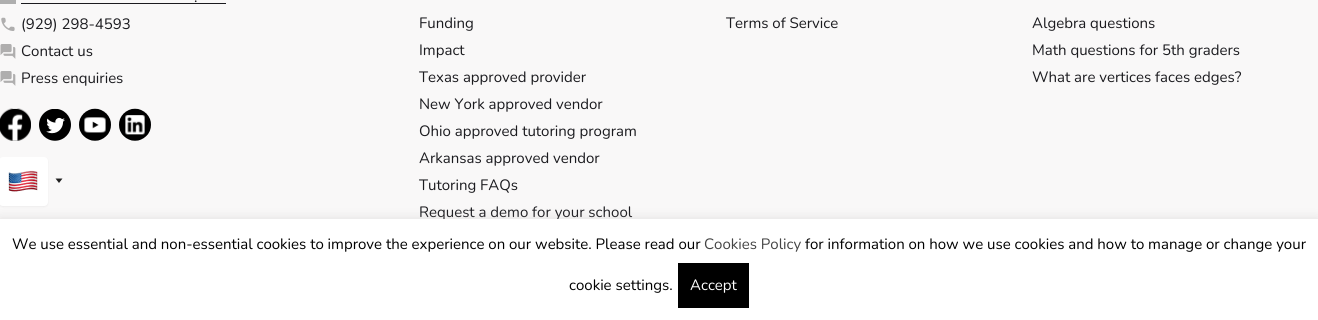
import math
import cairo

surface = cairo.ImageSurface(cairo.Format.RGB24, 1318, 320)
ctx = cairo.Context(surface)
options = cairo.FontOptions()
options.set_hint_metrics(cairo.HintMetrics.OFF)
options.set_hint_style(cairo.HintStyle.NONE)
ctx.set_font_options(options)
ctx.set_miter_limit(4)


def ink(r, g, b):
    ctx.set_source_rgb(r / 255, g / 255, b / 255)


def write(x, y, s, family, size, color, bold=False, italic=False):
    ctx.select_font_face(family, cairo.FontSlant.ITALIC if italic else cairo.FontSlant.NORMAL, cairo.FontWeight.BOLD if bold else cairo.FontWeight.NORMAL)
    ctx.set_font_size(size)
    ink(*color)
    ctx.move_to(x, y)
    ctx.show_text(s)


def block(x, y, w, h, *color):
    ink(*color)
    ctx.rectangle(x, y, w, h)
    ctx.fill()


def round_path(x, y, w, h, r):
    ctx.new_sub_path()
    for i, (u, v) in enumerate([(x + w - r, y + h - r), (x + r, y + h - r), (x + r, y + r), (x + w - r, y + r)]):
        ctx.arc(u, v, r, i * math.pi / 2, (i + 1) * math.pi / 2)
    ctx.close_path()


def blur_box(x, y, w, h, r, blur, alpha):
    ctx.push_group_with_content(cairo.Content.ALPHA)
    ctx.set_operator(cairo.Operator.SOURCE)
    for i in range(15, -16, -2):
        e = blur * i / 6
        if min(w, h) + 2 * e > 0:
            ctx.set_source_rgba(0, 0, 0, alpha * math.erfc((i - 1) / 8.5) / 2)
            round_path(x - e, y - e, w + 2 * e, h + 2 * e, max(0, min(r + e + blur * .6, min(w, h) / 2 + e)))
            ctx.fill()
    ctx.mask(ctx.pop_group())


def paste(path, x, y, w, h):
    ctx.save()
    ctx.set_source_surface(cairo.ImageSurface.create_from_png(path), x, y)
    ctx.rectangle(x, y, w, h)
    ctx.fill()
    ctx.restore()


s1 = dict(family="Nunito", size=15, color=(27, 27, 31))
s2 = dict(family="Nunito", size=15, color=(0, 0, 0))
s3 = dict(family="Nunito", size=15, color=(68, 68, 68))
s4 = dict(family="Nunito", size=15, color=(255, 255, 255))

ink(249, 248, 248)
ctx.paint()
block(0, 0, 16, 4, 174, 174, 174)
write(194, 2, ".", **s1)
block(21, 3, 205, 1, 27, 27, 31)
paste("pic1.png", 1, 17, 14, 14)
write(21, 29, "(929) 298-4593", **s1)
paste("pic2.png", 0, 44, 16, 15)
write(21, 56, "Contact us", **s1)
paste("pic2.png", 0, 71, 16, 15)
write(21, 83, "Press enquiries", **s1)
paste("pic3.png", 0, 108, 31, 33)
paste("pic4.png", 39, 109, 32, 32)
paste("pic5.png", 79, 108, 32, 33)
paste("pic6.png", 119, 108, 32, 33)
ink(0, 0, 0)
blur_box(-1, 158, 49, 49, 4, 1, 0.05)
ink(255, 255, 255)
round_path(-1, 157, 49, 49, 4)
ctx.fill()
paste("pic7.png", 8, 170, 30, 22)
ink(32, 32, 32)
ctx.new_path()
ctx.move_to(55.5, 178.5)
ctx.line_to(59, 183)
ctx.line_to(62.5, 178.5)
ctx.close_path()
ctx.fill()
write(419, 28, "Funding", **s1)
write(419, 55, "Impact", **s1)
write(419, 82, "Texas approved provider", **s1)
write(419, 109, "New York approved vendor", **s1)
write(419, 136, "Ohio approved tutoring program", **s1)
write(419, 163, "Arkansas approved vendor", **s1)
write(419, 190, "Tutoring FAQs", **s1)
write(419, 217, "Request a demo for your school", **s1)
write(726, 28, "Terms of Service", **s1)
write(1032, 28, "Algebra questions", **s1)
write(1032, 55, "Math questions for 5th graders", **s1)
write(1032, 82, "What are vertices faces edges?", **s1)
ink(172, 171, 171)
blur_box(0, 218, 1318, 101, 0, 5, 0.3)
block(0, 219, 1318, 101, 255, 255, 255)
write(12, 249, "We use essential and non-essential cookies to improve the experience on our website. Please read our", **s2)
write(704, 249, "Cookies Policy", **s3)
write(805, 249, "for information on how we use cookies and how to manage or change your", **s2)
write(569, 290, "cookie settings.", **s2)
block(678, 263, 71, 45, 0, 0, 0)
write(690, 290, "Accept", **s4)
surface.write_to_png("screenshot.png")
